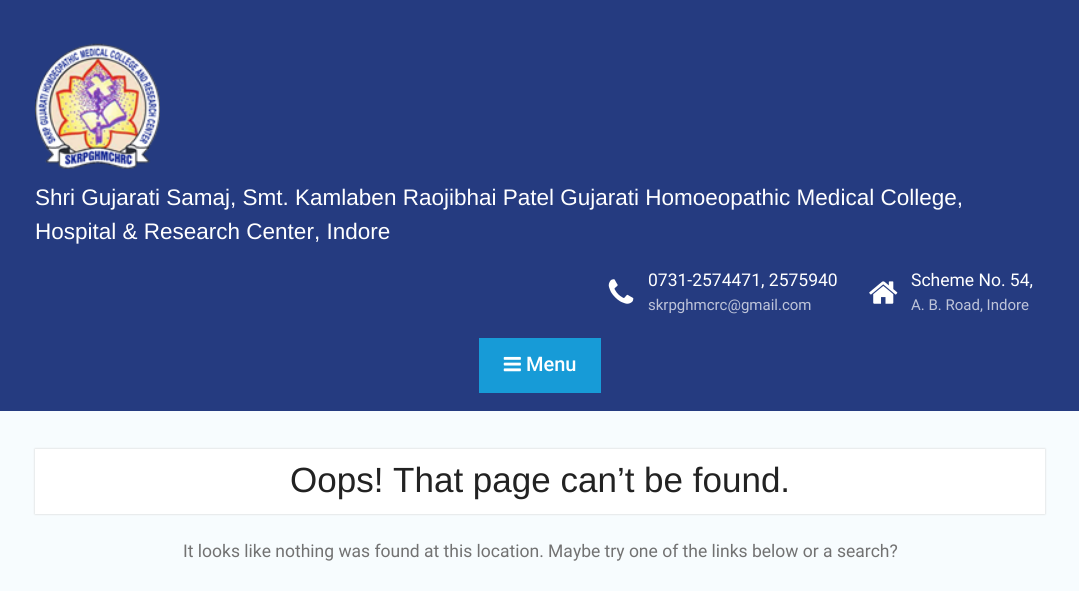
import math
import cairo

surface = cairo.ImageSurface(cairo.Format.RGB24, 1079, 591)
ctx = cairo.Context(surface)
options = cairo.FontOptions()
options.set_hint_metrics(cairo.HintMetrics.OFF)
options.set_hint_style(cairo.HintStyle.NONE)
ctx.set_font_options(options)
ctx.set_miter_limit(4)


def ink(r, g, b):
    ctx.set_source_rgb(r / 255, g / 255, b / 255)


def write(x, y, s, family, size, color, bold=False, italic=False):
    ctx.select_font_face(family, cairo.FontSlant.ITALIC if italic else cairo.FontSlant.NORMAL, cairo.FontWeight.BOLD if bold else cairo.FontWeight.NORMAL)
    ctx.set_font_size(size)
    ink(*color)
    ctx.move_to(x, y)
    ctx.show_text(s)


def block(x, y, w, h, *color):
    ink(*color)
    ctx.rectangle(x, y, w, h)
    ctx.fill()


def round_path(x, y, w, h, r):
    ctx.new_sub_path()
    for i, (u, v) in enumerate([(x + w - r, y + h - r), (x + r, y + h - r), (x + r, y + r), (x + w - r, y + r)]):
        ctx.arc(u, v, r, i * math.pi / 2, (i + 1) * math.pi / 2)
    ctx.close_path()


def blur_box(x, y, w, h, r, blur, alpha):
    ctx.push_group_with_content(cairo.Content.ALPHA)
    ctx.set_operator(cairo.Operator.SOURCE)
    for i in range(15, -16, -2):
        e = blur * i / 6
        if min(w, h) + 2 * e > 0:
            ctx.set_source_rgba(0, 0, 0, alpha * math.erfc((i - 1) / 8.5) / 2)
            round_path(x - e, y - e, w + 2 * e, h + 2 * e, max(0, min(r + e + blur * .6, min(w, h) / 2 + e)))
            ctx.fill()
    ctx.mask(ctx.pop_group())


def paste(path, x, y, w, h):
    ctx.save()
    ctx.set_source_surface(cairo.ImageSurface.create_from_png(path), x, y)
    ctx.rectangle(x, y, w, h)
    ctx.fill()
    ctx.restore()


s1 = dict(family="Liberation Sans", size=22.5, color=(255, 255, 255))
s2 = dict(family="Roboto", size=17.5, color=(255, 255, 255))
s3 = dict(family="Roboto", size=15, color=(190, 196, 217))
s4 = dict(family="Roboto Medium", size=20, color=(255, 255, 255))
s5 = dict(family="Liberation Sans", size=35, color=(34, 34, 34))
s6 = dict(family="Roboto", size=17.5, color=(114, 114, 114))

ink(247, 252, 254)
ctx.paint()
block(0, 0, 1079, 411, 37, 59, 128)
paste("pic1.png", 35, 43, 125, 126)
write(35, 205, "Shri Gujarati Samaj, Smt. Kamlaben Raojibhai Patel Gujarati Homoeopathic Medical College,", **s1)
write(35, 239, "Hospital & Research Center, Indore", **s1)
paste("pic2.png", 608, 279, 26, 25)
write(648, 286, "0731-2574471, 2575940", **s2)
write(648, 310, "skrpghmcrc@gmail.com", **s3)
paste("pic3.png", 869, 281, 29, 23)
write(911, 286, "Scheme No. 54,", **s2)
write(911, 310, "A. B. Road, Indore", **s3)
block(479, 338, 122, 55, 23, 155, 215)
paste("pic4.png", 503, 356, 18, 16)
write(526, 371, "Menu", **s4)
ink(207, 207, 207)
blur_box(35, 449, 1010, 65, 0, 1, 1)
block(35, 449, 1010, 65, 255, 255, 255)
write(290, 492, "Oops! That page can’t be found.", **s5)
write(183, 557, "It looks like nothing was found at this location. Maybe try one of the links below or a search?", **s6)
surface.write_to_png("screenshot.png")
